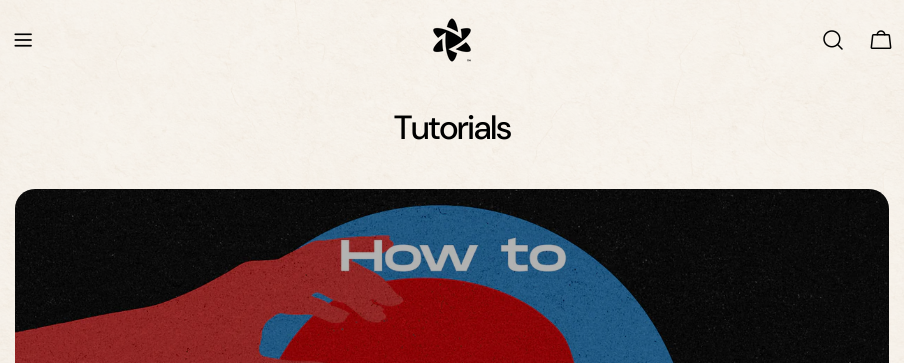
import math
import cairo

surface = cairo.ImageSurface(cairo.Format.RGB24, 904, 363)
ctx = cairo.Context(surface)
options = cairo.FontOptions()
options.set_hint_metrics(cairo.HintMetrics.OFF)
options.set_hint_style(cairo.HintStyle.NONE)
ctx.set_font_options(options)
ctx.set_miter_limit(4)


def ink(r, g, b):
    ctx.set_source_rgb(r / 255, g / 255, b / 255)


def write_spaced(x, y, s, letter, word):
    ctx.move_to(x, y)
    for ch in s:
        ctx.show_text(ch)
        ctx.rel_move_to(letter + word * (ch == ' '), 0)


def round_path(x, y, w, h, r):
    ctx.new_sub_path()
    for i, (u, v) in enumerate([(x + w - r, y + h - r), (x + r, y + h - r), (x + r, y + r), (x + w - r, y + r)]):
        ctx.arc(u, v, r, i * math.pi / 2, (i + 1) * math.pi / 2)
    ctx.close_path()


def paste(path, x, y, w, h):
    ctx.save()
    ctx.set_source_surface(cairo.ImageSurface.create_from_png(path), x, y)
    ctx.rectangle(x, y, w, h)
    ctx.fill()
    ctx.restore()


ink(255, 255, 255)
ctx.paint()
paste("pic1.png", 0, 0, 904, 80)
paste("pic2.png", 14, 33, 18, 14)
paste("pic3.png", 433, 18, 38, 44)
paste("pic4.png", 823, 30, 20, 20)
paste("pic5.png", 870, 30, 22, 19)
paste("pic6.png", 0, 80, 904, 283)
ctx.select_font_face("DM Sans Medium")
ctx.set_font_size(33.5)
ink(0, 0, 0)
write_spaced(394, 139, "Tutorials", -1.25, 0)
paste("pic7.png", 15, 189, 874, 174)
ctx.set_source_rgba(0, 0, 0, 0.3)
round_path(15, 189, 874, 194, 20)
ctx.fill()
surface.write_to_png("screenshot.png")
